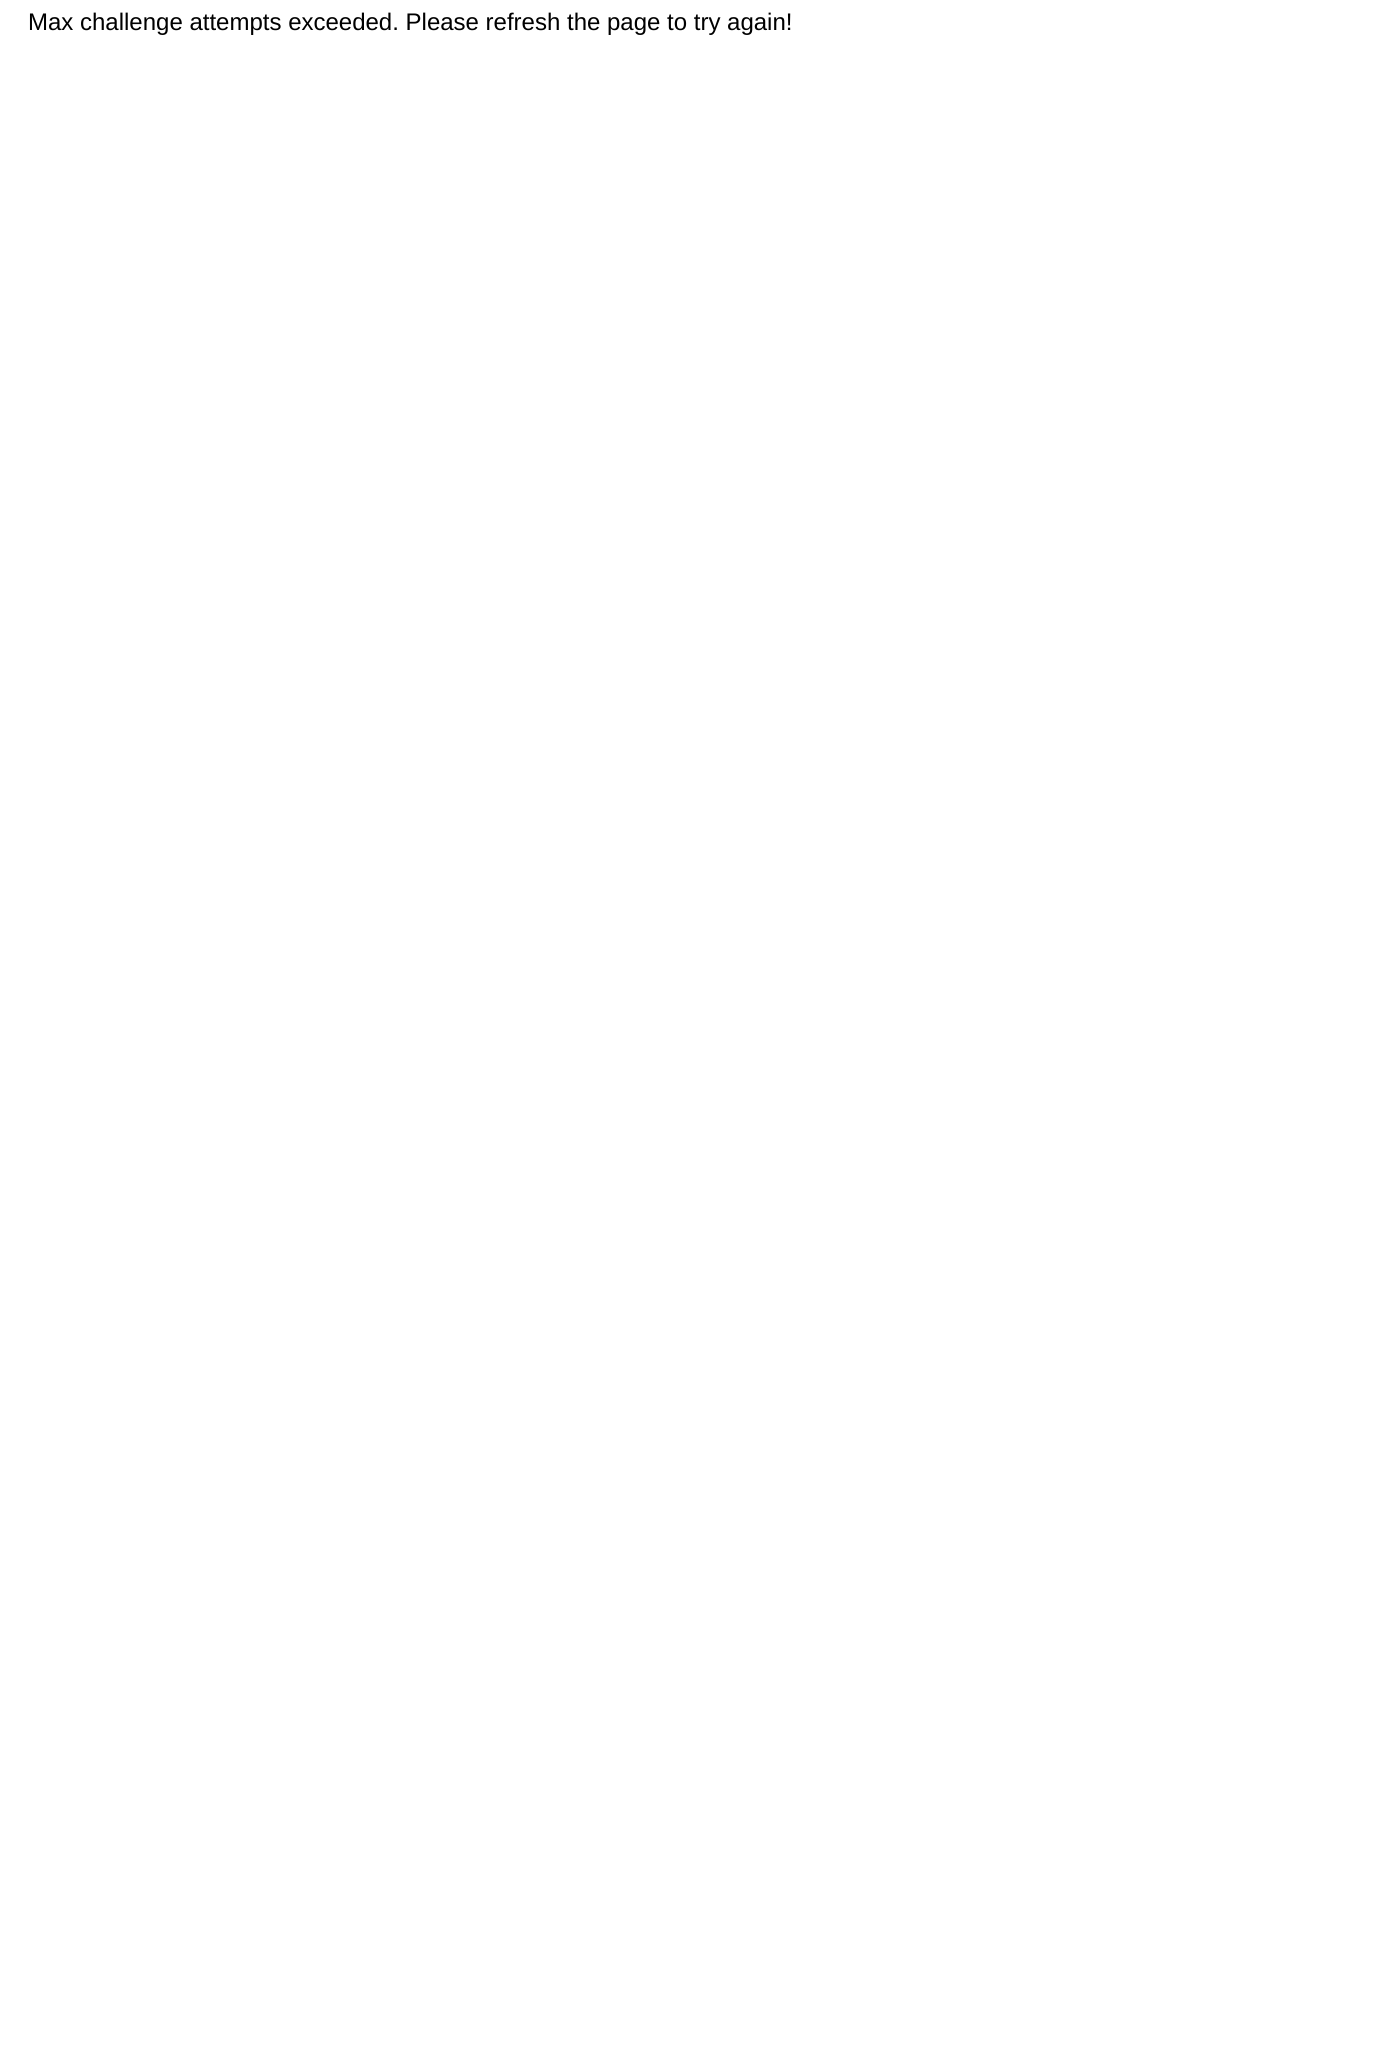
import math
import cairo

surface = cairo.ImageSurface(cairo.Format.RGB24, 1390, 2048)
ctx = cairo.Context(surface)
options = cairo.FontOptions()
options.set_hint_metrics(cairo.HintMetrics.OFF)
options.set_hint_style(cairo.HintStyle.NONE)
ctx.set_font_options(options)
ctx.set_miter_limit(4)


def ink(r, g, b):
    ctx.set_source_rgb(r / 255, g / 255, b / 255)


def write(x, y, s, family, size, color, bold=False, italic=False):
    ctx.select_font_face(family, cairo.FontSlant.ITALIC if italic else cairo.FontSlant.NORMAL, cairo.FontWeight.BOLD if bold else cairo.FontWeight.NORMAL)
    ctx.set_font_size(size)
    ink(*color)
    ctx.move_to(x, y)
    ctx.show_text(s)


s1 = dict(family="Liberation Sans", size=24, color=(0, 0, 0))

ink(255, 255, 255)
ctx.paint()
write(28, 30, "Max challenge attempts exceeded. Please refresh the page to try again!", **s1)
surface.write_to_png("screenshot.png")
